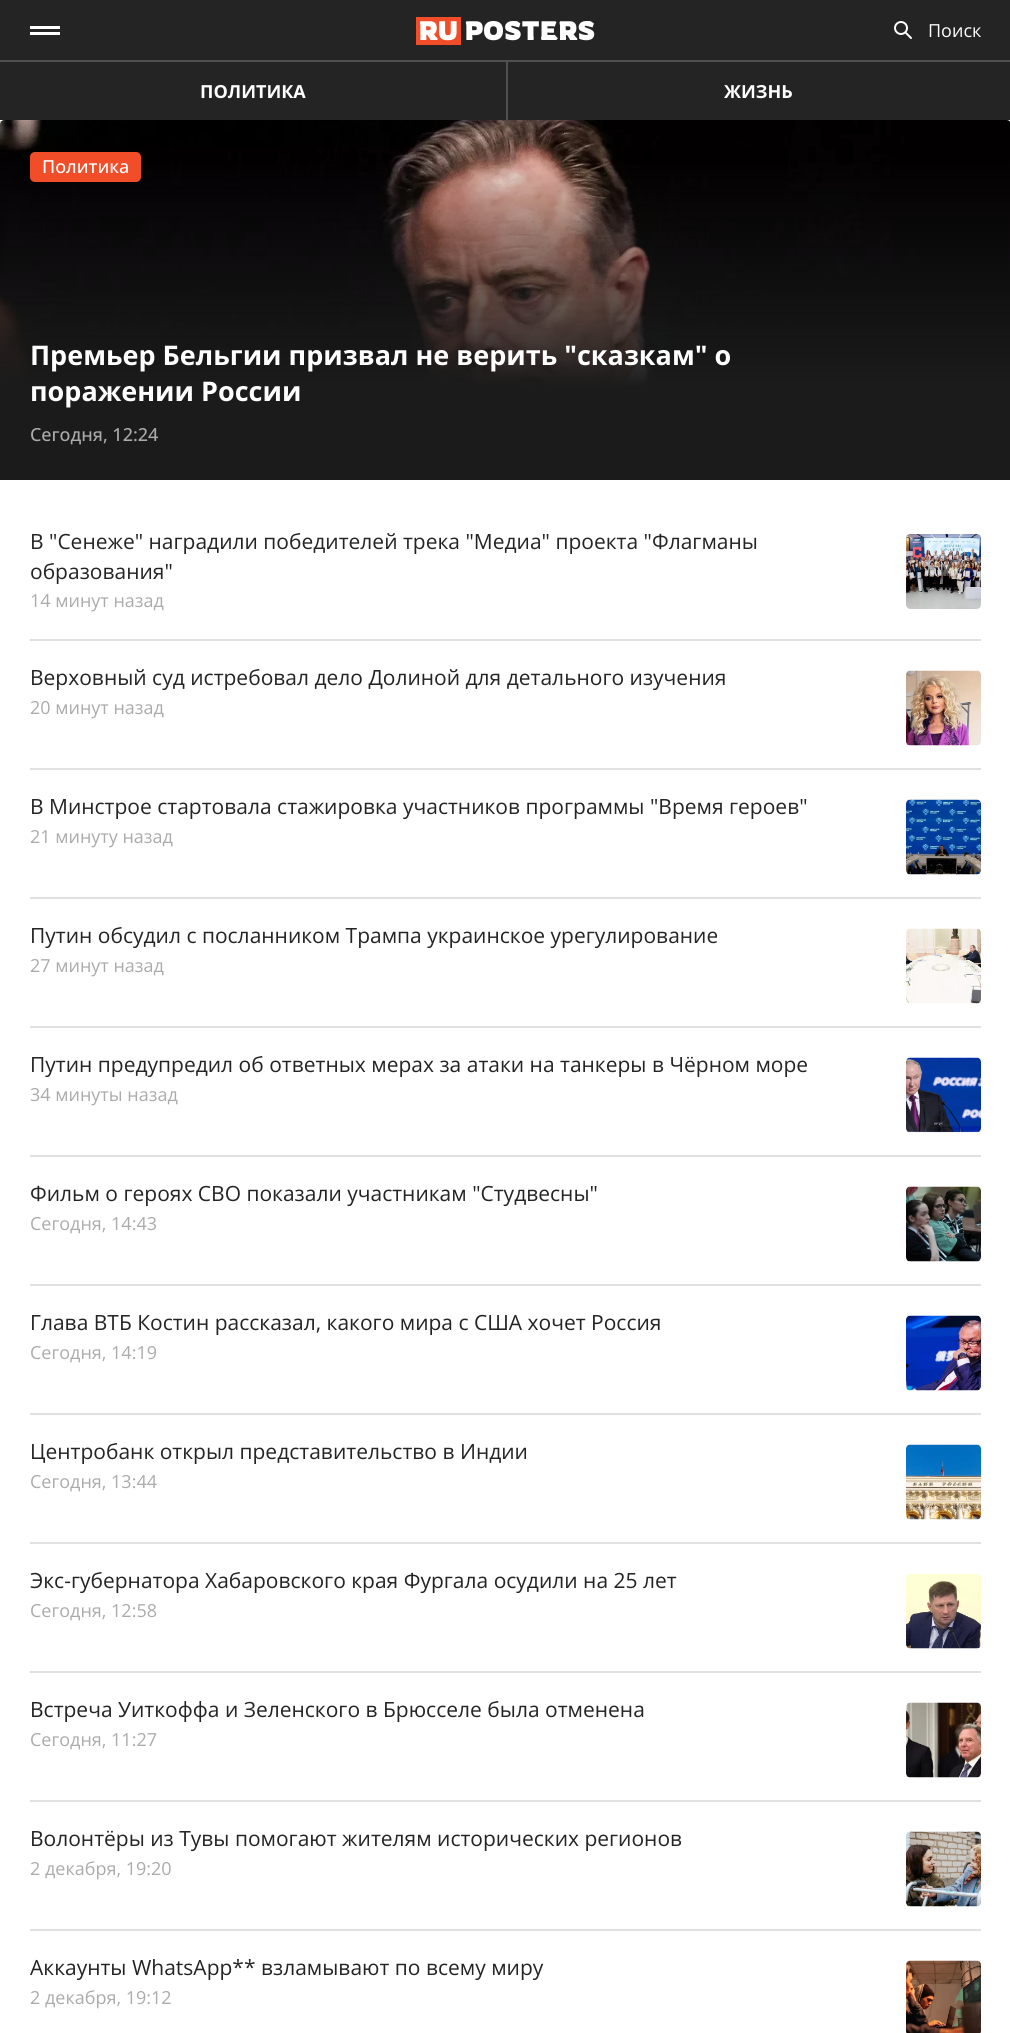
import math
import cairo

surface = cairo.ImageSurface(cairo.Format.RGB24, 1010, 2033)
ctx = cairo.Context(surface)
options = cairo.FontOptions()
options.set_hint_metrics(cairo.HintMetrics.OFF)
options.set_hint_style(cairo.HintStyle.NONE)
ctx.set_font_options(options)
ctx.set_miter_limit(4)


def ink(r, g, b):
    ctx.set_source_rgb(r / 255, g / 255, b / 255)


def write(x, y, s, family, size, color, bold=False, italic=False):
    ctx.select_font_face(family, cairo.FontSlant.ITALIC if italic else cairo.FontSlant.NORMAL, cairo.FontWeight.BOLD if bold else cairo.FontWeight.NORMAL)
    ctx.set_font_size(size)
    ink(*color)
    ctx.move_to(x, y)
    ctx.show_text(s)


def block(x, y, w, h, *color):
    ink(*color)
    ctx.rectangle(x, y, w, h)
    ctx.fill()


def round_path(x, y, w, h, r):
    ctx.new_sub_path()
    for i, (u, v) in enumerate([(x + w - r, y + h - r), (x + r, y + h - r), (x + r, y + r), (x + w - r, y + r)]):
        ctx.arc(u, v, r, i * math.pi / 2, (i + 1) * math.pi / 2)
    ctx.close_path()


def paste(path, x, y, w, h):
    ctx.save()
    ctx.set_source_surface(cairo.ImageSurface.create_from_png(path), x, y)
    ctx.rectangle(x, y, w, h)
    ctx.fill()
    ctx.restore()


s1 = dict(family="Open Sans", size=18, color=(255, 255, 255))
s2 = dict(family="Open Sans", size=18, color=(255, 255, 255), bold=True)
s3 = dict(family="Open Sans Medium", size=18, color=(255, 255, 255))
s4 = dict(family="Open Sans", size=27, color=(255, 255, 255), bold=True)
s5 = dict(family="Open Sans Medium", size=18, color=(171, 171, 171))
s6 = dict(family="Open Sans", size=21, color=(36, 36, 36))
s7 = dict(family="Open Sans", size=18, color=(171, 171, 171))

ink(255, 255, 255)
ctx.paint()
block(0, 0, 1010, 120, 36, 36, 36)
block(30, 26, 30, 3, 255, 255, 255)
block(30, 32, 30, 3, 255, 255, 255)
paste("pic1.png", 416, 17, 179, 28)
paste("pic2.png", 894, 21, 18, 18)
write(928, 37, "Поиск", **s1)
block(0, 60, 1010, 2, 80, 80, 80)
write(200, 98, "ПОЛИТИКА", **s2)
block(506, 62, 2, 58, 80, 80, 80)
write(724, 98, "ЖИЗНЬ", **s2)
paste("pic3.png", 0, 120, 1010, 265)
gradient = cairo.LinearGradient(506, 120, 506, 480)
gradient.add_color_stop_rgba(0.11, 0.106, 0.106, 0.106, 0)
gradient.add_color_stop_rgba(0.74, 0.106, 0.106, 0.106, 1)
ctx.set_source(gradient)
ctx.rectangle(0, 164, 1010, 316)
ctx.fill()
ink(241, 77, 41)
round_path(30, 152, 111, 30, 5)
ctx.fill()
write(42, 173, "Политика", **s3)
write(30, 365, "Премьер Бельгии призвал не верить \"сказкам\" о", **s4)
write(30, 401, "поражении России", **s4)
write(30, 441, "Сегодня, 12:24", **s5)
block(30, 639, 951, 2, 225, 225, 225)
write(30, 549, "В \"Сенеже\" наградили победителей трека \"Медиа\" проекта \"Флагманы", **s6)
write(30, 579, "образования\"", **s6)
write(30, 607, "14 минут назад", **s7)
paste("pic4.png", 906, 534, 75, 75)
block(30, 768, 951, 2, 225, 225, 225)
write(30, 685, "Верховный суд истребовал дело Долиной для детального изучения", **s6)
write(30, 714, "20 минут назад", **s7)
paste("pic5.png", 906, 670, 75, 76)
block(30, 897, 951, 2, 225, 225, 225)
write(30, 814, "В Минстрое стартовала стажировка участников программы \"Время героев\"", **s6)
write(30, 843, "21 минуту назад", **s7)
paste("pic6.png", 906, 799, 75, 76)
block(30, 1026, 951, 2, 225, 225, 225)
write(30, 943, "Путин обсудил с посланником Трампа украинское урегулирование", **s6)
write(30, 972, "27 минут назад", **s7)
paste("pic7.png", 906, 928, 75, 76)
block(30, 1155, 951, 2, 225, 225, 225)
write(30, 1072, "Путин предупредил об ответных мерах за атаки на танкеры в Чёрном море", **s6)
write(30, 1101, "34 минуты назад", **s7)
paste("pic8.png", 906, 1057, 75, 76)
block(30, 1284, 951, 2, 225, 225, 225)
write(30, 1201, "Фильм о героях СВО показали участникам \"Студвесны\"", **s6)
write(30, 1230, "Сегодня, 14:43", **s7)
paste("pic9.png", 906, 1186, 75, 76)
block(30, 1413, 951, 2, 225, 225, 225)
write(30, 1330, "Глава ВТБ Костин рассказал, какого мира с США хочет Россия", **s6)
write(30, 1359, "Сегодня, 14:19", **s7)
paste("pic10.png", 906, 1315, 75, 76)
block(30, 1542, 951, 2, 225, 225, 225)
write(30, 1459, "Центробанк открыл представительство в Индии", **s6)
write(30, 1488, "Сегодня, 13:44", **s7)
paste("pic11.png", 906, 1444, 75, 76)
block(30, 1671, 951, 2, 225, 225, 225)
write(30, 1588, "Экс-губернатора Хабаровского края Фургала осудили на 25 лет", **s6)
write(30, 1617, "Сегодня, 12:58", **s7)
paste("pic12.png", 906, 1573, 75, 76)
block(30, 1800, 951, 2, 225, 225, 225)
write(30, 1717, "Встреча Уиткоффа и Зеленского в Брюсселе была отменена", **s6)
write(30, 1746, "Сегодня, 11:27", **s7)
paste("pic13.png", 906, 1702, 75, 76)
block(30, 1929, 951, 2, 225, 225, 225)
write(30, 1846, "Волонтёры из Тувы помогают жителям исторических регионов", **s6)
write(30, 1875, "2 декабря, 19:20", **s7)
paste("pic14.png", 906, 1831, 75, 76)
write(30, 1975, "Аккаунты WhatsApp** взламывают по всему миру", **s6)
write(30, 2004, "2 декабря, 19:12", **s7)
paste("pic15.png", 906, 1960, 75, 73)
surface.write_to_png("screenshot.png")
